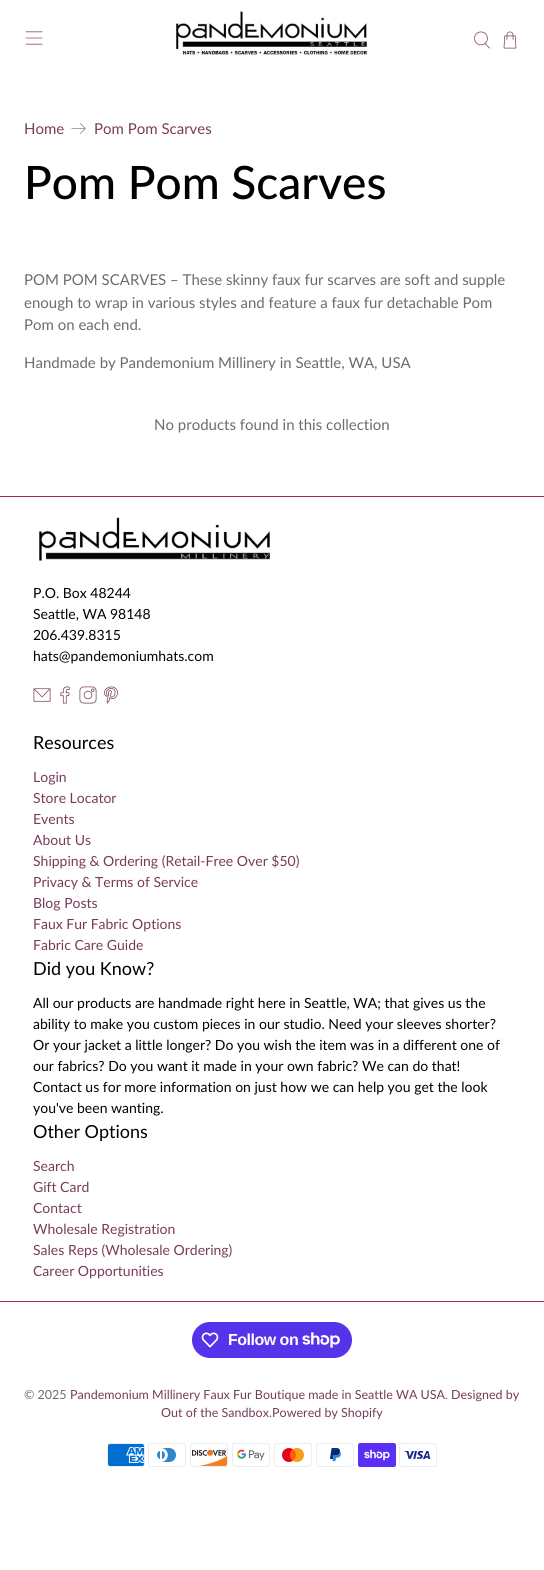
import math
import cairo

surface = cairo.ImageSurface(cairo.Format.RGB24, 544, 1570)
ctx = cairo.Context(surface)
options = cairo.FontOptions()
options.set_hint_metrics(cairo.HintMetrics.OFF)
options.set_hint_style(cairo.HintStyle.NONE)
ctx.set_font_options(options)
ctx.set_miter_limit(4)


def ink(r, g, b):
    ctx.set_source_rgb(r / 255, g / 255, b / 255)


def write(x, y, s, family, size, color, bold=False, italic=False):
    ctx.select_font_face(family, cairo.FontSlant.ITALIC if italic else cairo.FontSlant.NORMAL, cairo.FontWeight.BOLD if bold else cairo.FontWeight.NORMAL)
    ctx.set_font_size(size)
    ink(*color)
    ctx.move_to(x, y)
    ctx.show_text(s)


def write_spaced(x, y, s, letter, word):
    ctx.move_to(x, y)
    for ch in s:
        ctx.show_text(ch)
        ctx.rel_move_to(letter + word * (ch == ' '), 0)


def block(x, y, w, h, *color):
    ink(*color)
    ctx.rectangle(x, y, w, h)
    ctx.fill()


def round_path(x, y, w, h, r):
    ctx.new_sub_path()
    for i, (u, v) in enumerate([(x + w - r, y + h - r), (x + r, y + h - r), (x + r, y + r), (x + w - r, y + r)]):
        ctx.arc(u, v, r, i * math.pi / 2, (i + 1) * math.pi / 2)
    ctx.close_path()


def paste(path, x, y, w, h):
    ctx.save()
    ctx.set_source_surface(cairo.ImageSurface.create_from_png(path), x, y)
    ctx.rectangle(x, y, w, h)
    ctx.fill()
    ctx.restore()


s1 = dict(family="Lato", size=15, color=(120, 59, 91))
s2 = dict(family="Lato Medium", size=46, color=(0, 0, 0))
s3 = dict(family="Lato", size=15, color=(108, 108, 108))
s4 = dict(family="Lato", size=14, color=(0, 0, 0))
s5 = dict(family="Lato", size=18, color=(0, 0, 0))
s6 = dict(family="Lato", size=14, color=(120, 59, 91))
s7 = dict(family="Lato", size=12.5, color=(108, 108, 108))
s8 = dict(family="Lato", size=12.5, color=(120, 59, 91))

ink(255, 255, 255)
ctx.paint()
paste("pic1.png", 25, 31, 18, 14)
paste("pic2.png", 176, 11, 192, 44)
paste("pic3.png", 474, 31, 16, 18)
paste("pic4.png", 503, 31, 14, 18)
write(24, 134, "Home", **s1)
paste("pic5.png", 71, 123, 15, 11)
write(94, 134, "Pom Pom Scarves", **s1)
write(24, 199, "Pom Pom Scarves", **s2)
write(24, 285, "POM POM SCARVES – These skinny faux fur scarves are soft and supple", **s3)
write(24, 308, "enough to wrap in various styles and feature a faux fur detachable Pom", **s3)
write(24, 330, "Pom on each end.", **s3)
write(24, 368, "Handmade by Pandemonium Millinery in Seattle, WA, USA", **s3)
write(154, 430, "No products found in this collection", **s3)
block(0, 496, 544, 1, 163, 38, 104)
block(0, 1301, 544, 1, 163, 38, 104)
paste("pic6.png", 39, 517, 231, 44)
write(33, 598, "P.O. Box 48244", **s4)
write(33, 619, "Seattle, WA 98148", **s4)
write(33, 640, "206.439.8315", **s4)
write(33, 661, "hats@pandemoniumhats.com", **s4)
paste("pic7.png", 33, 688, 18, 14)
paste("pic8.png", 60, 686, 10, 18)
paste("pic9.png", 79, 686, 18, 18)
paste("pic10.png", 104, 686, 14, 18)
write(33, 749, "Resources", **s5)
write(33, 782, "Login", **s6)
write(33, 803, "Store Locator", **s6)
write(33, 824, "Events", **s6)
write(33, 845, "About Us", **s6)
write(33, 866, "Shipping & Ordering (Retail-Free Over $50)", **s6)
write(33, 887, "Privacy & Terms of Service", **s6)
write(33, 908, "Blog Posts", **s6)
write(33, 929, "Faux Fur Fabric Options", **s6)
write(33, 950, "Fabric Care Guide", **s6)
write(33, 975, "Did you Know?", **s5)
write(33, 1008, "All our products are handmade right here in Seattle, WA; that gives us the", **s4)
write(33, 1029, "ability to make you custom pieces in our studio. Need your sleeves shorter?", **s4)
write(33, 1050, "Or your jacket a little longer? Do you wish the item was in a different one of", **s4)
write(33, 1071, "our fabrics? Do you want it made in your own fabric? We can do that!", **s4)
write(33, 1092, "Contact us for more information on just how we can help you get the look", **s4)
write(33, 1113, "you've been wanting.", **s4)
write(33, 1138, "Other Options", **s5)
write(33, 1171, "Search", **s6)
write(33, 1192, "Gift Card", **s6)
write(33, 1213, "Contact", **s6)
write(33, 1234, "Wholesale Registration", **s6)
write(33, 1255, "Sales Reps (Wholesale Ordering)", **s6)
write(33, 1276, "Career Opportunities", **s6)
ink(84, 51, 235)
round_path(192, 1322, 160, 36, 18)
ctx.fill()
paste("pic11.png", 201, 1332, 18, 16)
ctx.select_font_face("Liberation Sans", cairo.FontSlant.NORMAL, cairo.FontWeight.BOLD)
ctx.set_font_size(16)
ink(255, 255, 255)
write_spaced(228, 1345, "Follow on", -0.5, 0)
paste("pic12.png", 302, 1332, 38, 16)
write(24, 1399, "© 2025", **s7)
write(70, 1399, "Pandemonium Millinery Faux Fur Boutique made in Seattle WA USA", **s8)
write(445, 1399, ".", **s7)
write(451, 1399, "Designed by", **s8)
write(161, 1417, "Out of the Sandbox Powered by Shopify", **s8)
write(269, 1417, ".", **s7)
paste("pic13.png", 107, 1443, 38, 24)
paste("pic14.png", 148, 1443, 38, 24)
paste("pic15.png", 190, 1443, 38, 24)
paste("pic16.png", 232, 1443, 38, 24)
paste("pic17.png", 274, 1443, 38, 24)
paste("pic18.png", 316, 1443, 38, 24)
paste("pic19.png", 358, 1443, 38, 24)
paste("pic20.png", 399, 1443, 38, 24)
surface.write_to_png("screenshot.png")
